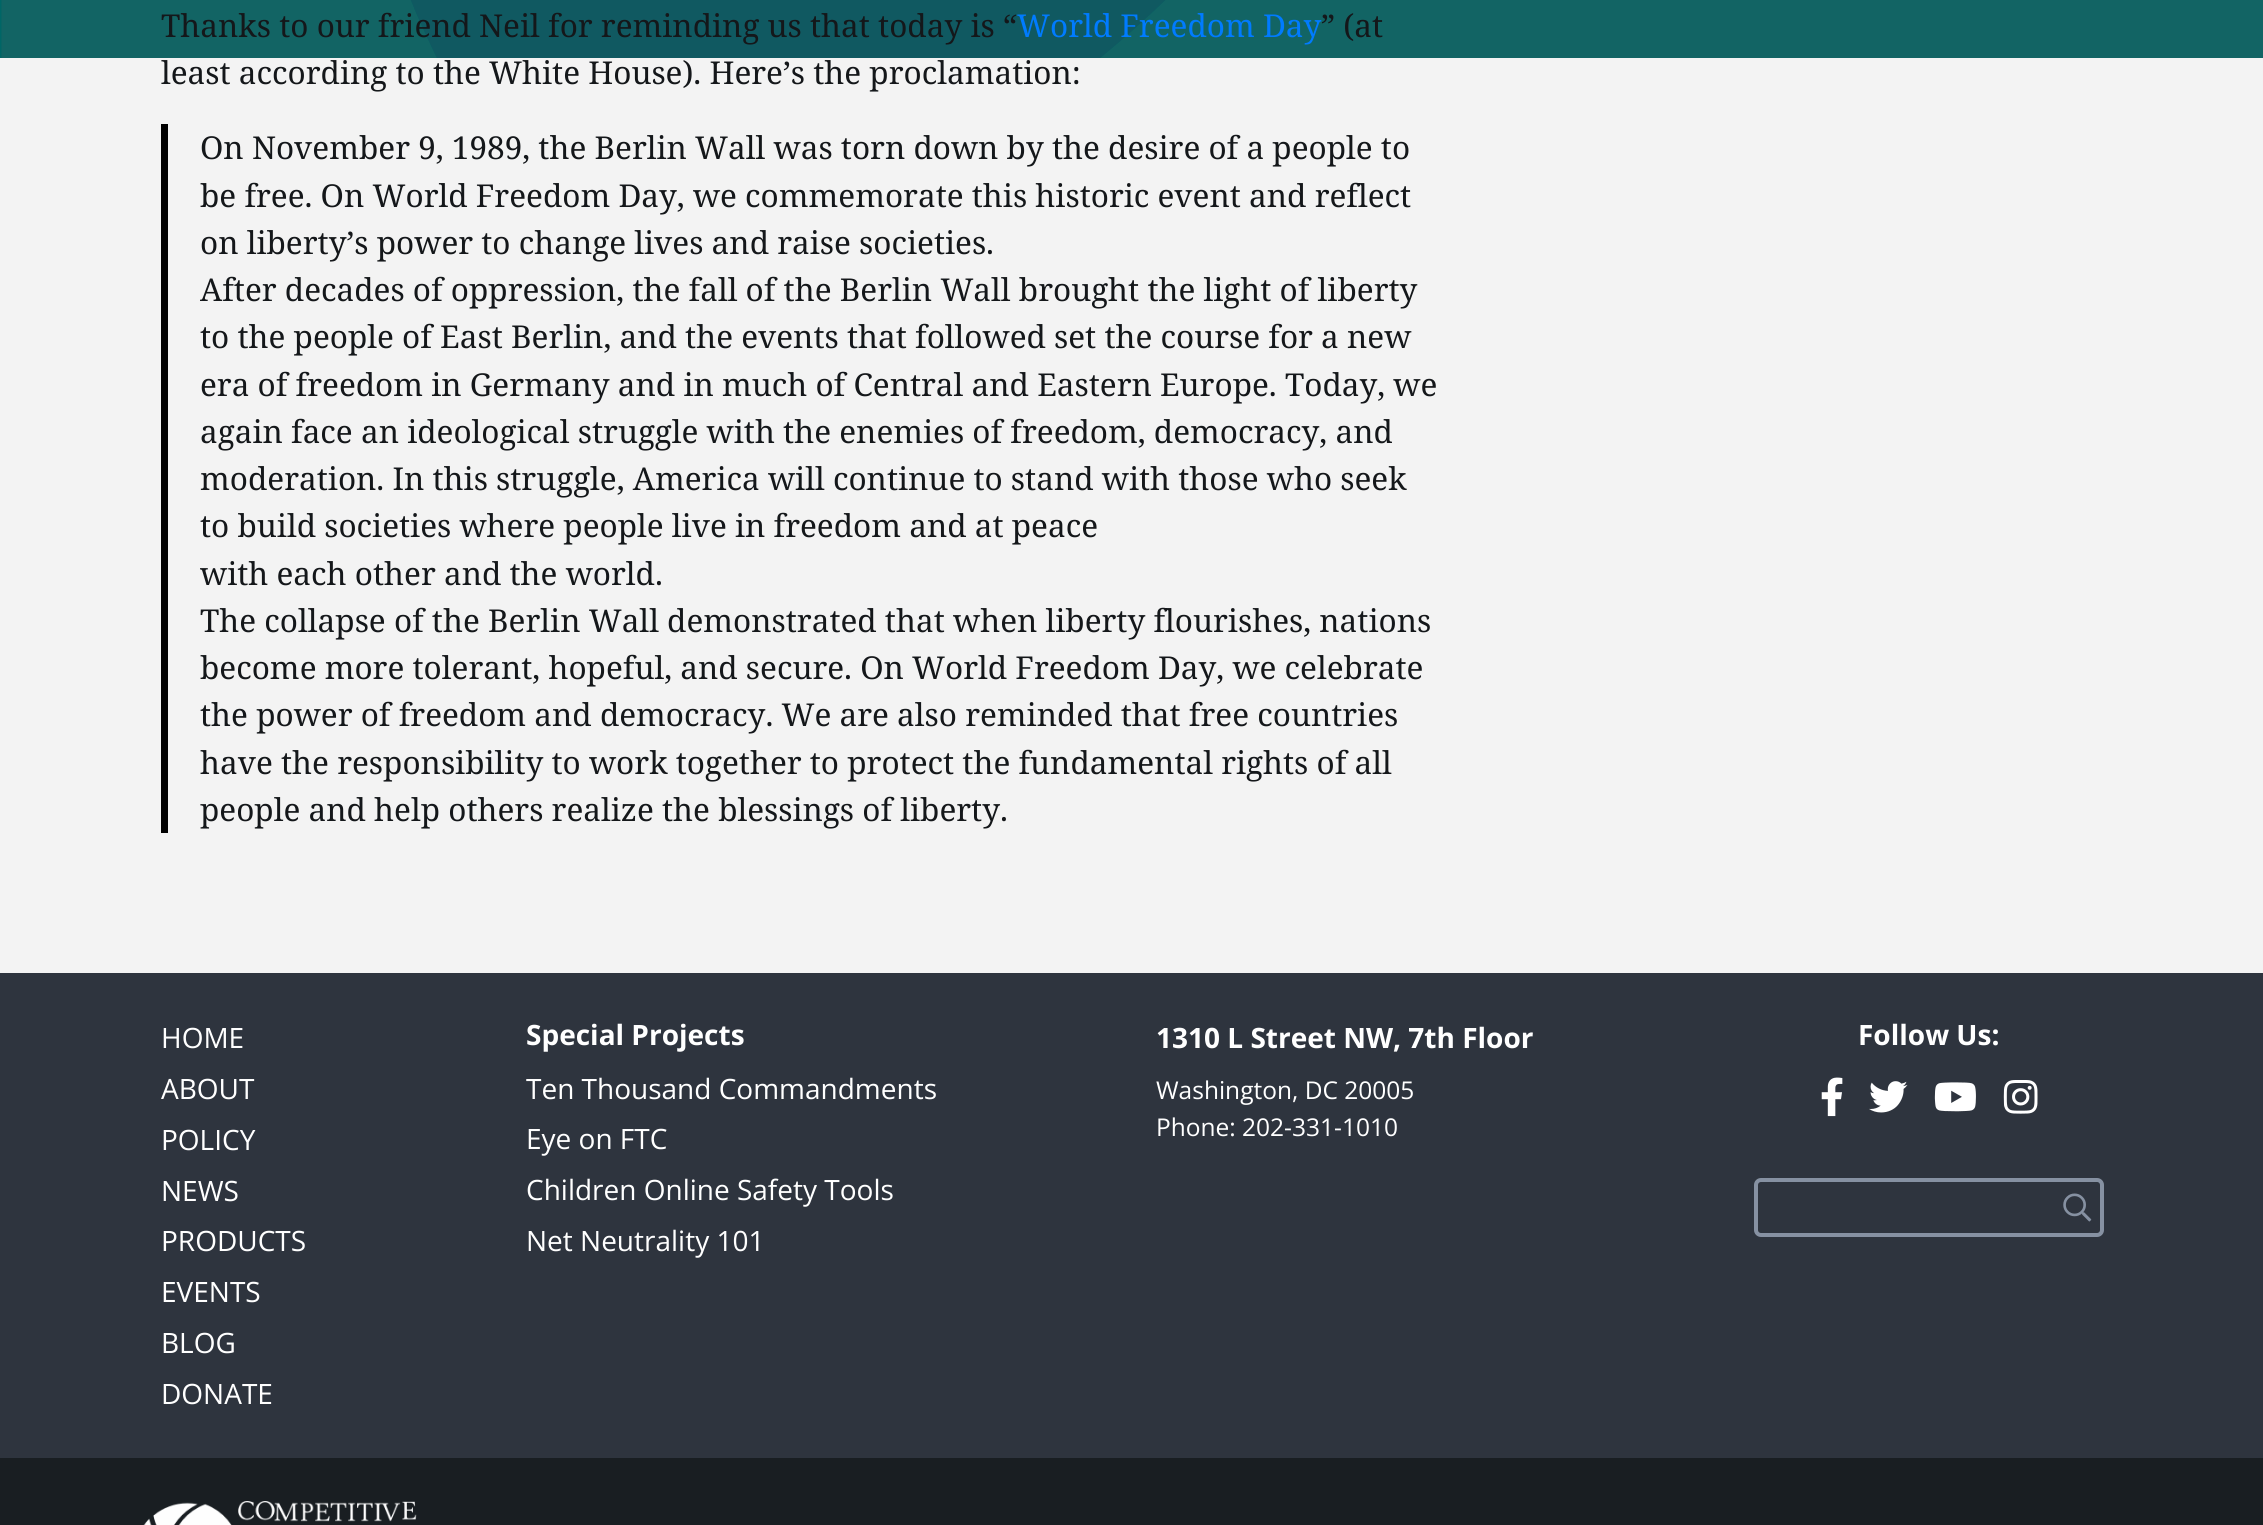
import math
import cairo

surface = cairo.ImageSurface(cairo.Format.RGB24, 2263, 1525)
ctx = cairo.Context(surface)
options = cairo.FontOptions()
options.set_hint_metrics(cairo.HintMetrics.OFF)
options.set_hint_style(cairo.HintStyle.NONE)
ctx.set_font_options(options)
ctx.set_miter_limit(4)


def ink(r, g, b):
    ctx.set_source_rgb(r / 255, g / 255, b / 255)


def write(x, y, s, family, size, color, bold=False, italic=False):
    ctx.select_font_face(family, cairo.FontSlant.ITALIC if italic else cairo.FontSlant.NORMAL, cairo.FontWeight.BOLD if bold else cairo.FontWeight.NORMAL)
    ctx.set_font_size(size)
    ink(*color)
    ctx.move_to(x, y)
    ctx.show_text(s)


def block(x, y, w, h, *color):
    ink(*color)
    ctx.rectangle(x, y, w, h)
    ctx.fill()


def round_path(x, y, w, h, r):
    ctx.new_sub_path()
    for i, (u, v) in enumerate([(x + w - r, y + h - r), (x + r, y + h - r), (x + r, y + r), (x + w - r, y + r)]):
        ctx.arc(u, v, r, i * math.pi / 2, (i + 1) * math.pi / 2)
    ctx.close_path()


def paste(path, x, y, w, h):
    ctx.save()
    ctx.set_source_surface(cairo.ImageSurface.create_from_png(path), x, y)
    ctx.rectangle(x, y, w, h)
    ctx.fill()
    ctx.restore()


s1 = dict(family="Noto Serif", size=31.5, color=(20, 23, 26))
s2 = dict(family="Noto Serif", size=31.5, color=(0, 123, 255))
s3 = dict(family="Open Sans", size=28, color=(255, 255, 255))
s4 = dict(family="Open Sans", size=28, color=(255, 255, 255), bold=True)
s5 = dict(family="Open Sans", size=24.5, color=(255, 255, 255))

ink(243, 243, 243)
ctx.paint()
block(0, 0, 1166, 58, 0, 102, 102)
paste("pic1.png", 1, 0, 2262, 58)
write(161, 37, "Thanks to our friend Neil for reminding us that today is “", **s1)
write(1017, 37, "World Freedom Day", **s2)
write(1321, 37, "” (at", **s1)
write(161, 84, "least according to the White House). Here’s the proclamation:", **s1)
block(161, 124, 7, 709, 0, 0, 0)
write(200, 159, "On November 9, 1989, the Berlin Wall was torn down by the desire of a people to", **s1)
write(200, 207, "be free. On World Freedom Day, we commemorate this historic event and reflect", **s1)
write(200, 254, "on liberty’s power to change lives and raise societies.", **s1)
write(200, 301, "After decades of oppression, the fall of the Berlin Wall brought the light of liberty", **s1)
write(200, 348, "to the people of East Berlin, and the events that followed set the course for a new", **s1)
write(200, 396, "era of freedom in Germany and in much of Central and Eastern Europe. Today, we", **s1)
write(200, 443, "again face an ideological struggle with the enemies of freedom, democracy, and", **s1)
write(200, 490, "moderation. In this struggle, America will continue to stand with those who seek", **s1)
write(200, 537, "to build societies where people live in freedom and at peace", **s1)
write(200, 585, "with each other and the world.", **s1)
write(200, 632, "The collapse of the Berlin Wall demonstrated that when liberty flourishes, nations", **s1)
write(200, 679, "become more tolerant, hopeful, and secure. On World Freedom Day, we celebrate", **s1)
write(200, 726, "the power of freedom and democracy. We are also reminded that free countries", **s1)
write(200, 774, "have the responsibility to work together to protect the fundamental rights of all", **s1)
write(200, 821, "people and help others realize the blessings of liberty.", **s1)
block(0, 973, 2263, 485, 46, 52, 62)
write(161, 1048, "HOME", **s3)
write(161, 1099, "ABOUT", **s3)
write(161, 1150, "POLICY", **s3)
write(161, 1201, "NEWS", **s3)
write(161, 1251, "PRODUCTS", **s3)
write(161, 1302, "EVENTS", **s3)
write(161, 1353, "BLOG", **s3)
write(161, 1404, "DONATE", **s3)
write(526, 1045, "Special Projects", **s4)
write(526, 1099, "Ten Thousand Commandments", **s3)
write(526, 1149, "Eye on FTC", **s3)
write(526, 1200, "Children Online Safety Tools", **s3)
write(526, 1251, "Net Neutrality 101", **s3)
write(1156, 1048, "1310 L Street NW, 7th Floor", **s4)
write(1156, 1099, "Washington, DC 20005", **s5)
write(1156, 1136, "Phone: 202-331-1010", **s5)
write(1858, 1045, "Follow Us:", **s4)
paste("pic2.png", 1821, 1077, 22, 40)
paste("pic3.png", 1869, 1081, 39, 32)
paste("pic4.png", 1934, 1082, 42, 30)
paste("pic5.png", 2003, 1080, 35, 34)
round_path(1756, 1180, 346, 55, 5)
ink(134, 145, 162)
ctx.set_line_width(4)
ctx.stroke()
paste("pic6.png", 2063, 1193, 29, 29)
block(0, 1458, 2263, 67, 25, 30, 34)
paste("pic7.png", 143, 1501, 274, 24)
surface.write_to_png("screenshot.png")
